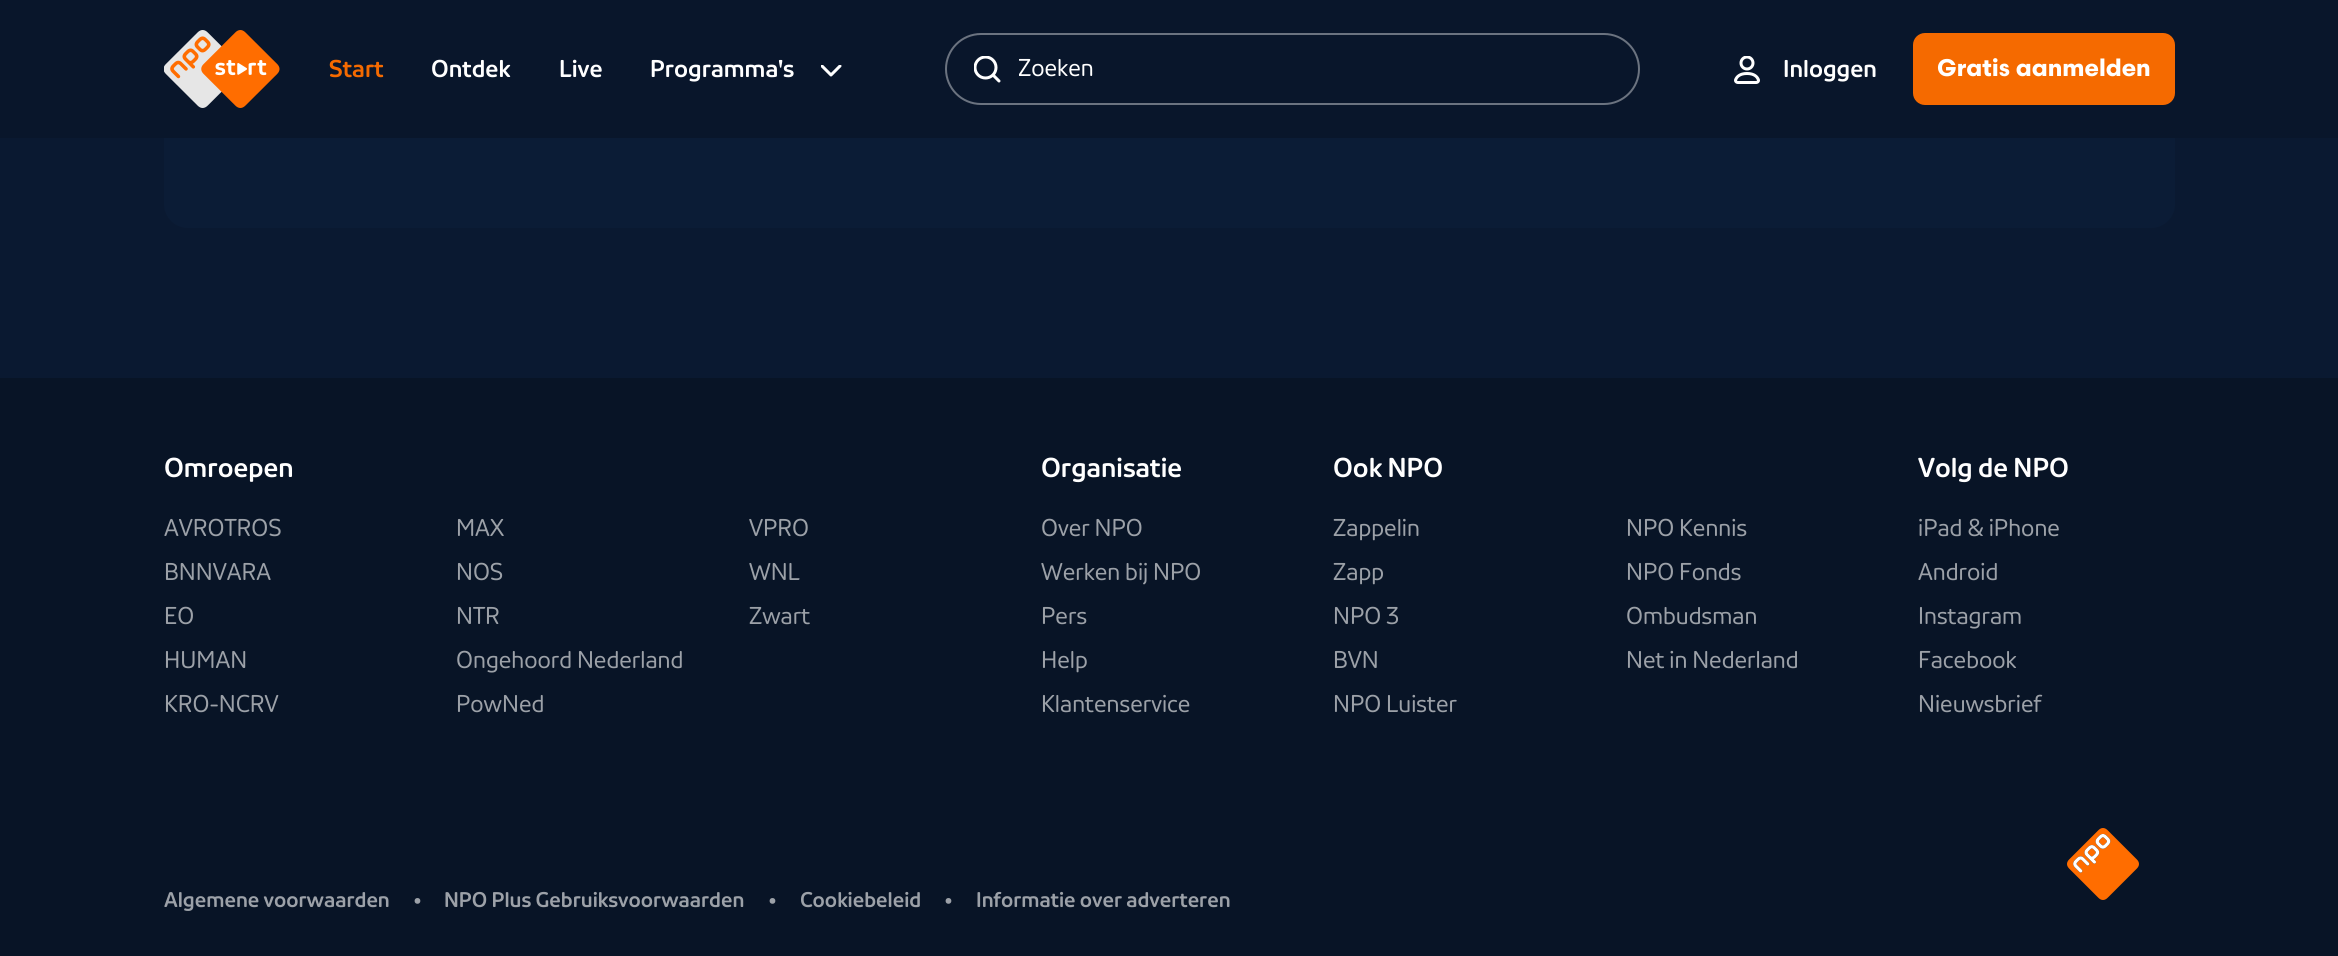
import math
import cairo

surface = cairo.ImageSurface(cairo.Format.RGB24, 2338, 956)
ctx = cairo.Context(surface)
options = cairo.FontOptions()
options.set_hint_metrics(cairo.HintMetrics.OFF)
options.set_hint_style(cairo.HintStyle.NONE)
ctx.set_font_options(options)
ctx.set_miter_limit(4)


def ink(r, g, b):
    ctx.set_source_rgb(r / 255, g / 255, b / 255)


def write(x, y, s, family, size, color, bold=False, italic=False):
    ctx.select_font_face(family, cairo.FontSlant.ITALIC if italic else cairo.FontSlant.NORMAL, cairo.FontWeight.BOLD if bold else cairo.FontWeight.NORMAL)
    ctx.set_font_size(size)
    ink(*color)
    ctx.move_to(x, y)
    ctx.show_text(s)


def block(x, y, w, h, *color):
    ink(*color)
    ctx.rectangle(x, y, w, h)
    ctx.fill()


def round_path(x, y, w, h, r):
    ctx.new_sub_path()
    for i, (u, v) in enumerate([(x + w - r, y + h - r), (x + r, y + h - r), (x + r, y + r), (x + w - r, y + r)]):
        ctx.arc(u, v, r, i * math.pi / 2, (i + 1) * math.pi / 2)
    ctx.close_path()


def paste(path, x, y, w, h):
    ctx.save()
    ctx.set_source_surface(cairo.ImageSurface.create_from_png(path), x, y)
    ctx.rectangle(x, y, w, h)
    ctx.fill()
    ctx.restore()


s1 = dict(family="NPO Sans", size=24, color=(245, 106, 0), bold=True)
s2 = dict(family="NPO Sans", size=24, color=(255, 255, 255), bold=True)
s3 = dict(family="NPO Sans", size=24, color=(255, 255, 255))
s4 = dict(family="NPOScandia", size=24, color=(255, 255, 255), bold=True)
s5 = dict(family="NPO Sans", size=27, color=(255, 255, 255), bold=True)
s6 = dict(family="NPO Sans", size=24, color=(156, 161, 168))
s7 = dict(family="NPO Sans", size=21, color=(156, 161, 168), bold=True)
s8 = dict(family="NPO Sans", size=30, color=(156, 161, 168))

ink(10, 25, 49)
ctx.paint()
ink(11, 28, 54)
round_path(164, -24, 2011, 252, 24)
ctx.fill()
block(0, 0, 2338, 138, 9, 22, 43)
paste("pic1.png", 164, 30, 116, 78)
write(329, 77, "Start", **s1)
write(431, 77, "Ontdek", **s2)
write(559, 77, "Live", **s2)
write(650, 77, "Programma's", **s2)
paste("pic2.png", 821, 65, 21, 12)
round_path(946, 34, 693, 70, 35)
ink(107, 115, 128)
ctx.stroke()
paste("pic3.png", 974, 56, 27, 27)
ctx.save()
ctx.rectangle(1019, 56, 547, 28)
ctx.clip()
write(1018, 76, "Zoeken", **s3)
ctx.restore()
paste("pic4.png", 1734, 56, 26, 28)
write(1783, 77, "Inloggen", **s2)
ink(245, 106, 0)
round_path(1913, 33, 262, 72, 12)
ctx.fill()
write(1937, 76, "Gratis aanmelden", **s4)
block(0, 378, 2338, 578, 8, 20, 38)
write(164, 477, "Omroepen", **s5)
write(164, 536, "AVROTROS", **s6)
write(164, 580, "BNNVARA", **s6)
write(164, 624, "EO", **s6)
write(164, 668, "HUMAN", **s6)
write(164, 712, "KRO-NCRV", **s6)
write(456, 536, "MAX", **s6)
write(456, 580, "NOS", **s6)
write(456, 624, "NTR", **s6)
write(456, 668, "Ongehoord Nederland", **s6)
write(456, 712, "PowNed", **s6)
write(749, 536, "VPRO", **s6)
write(749, 580, "WNL", **s6)
write(749, 624, "Zwart", **s6)
write(1041, 477, "Organisatie", **s5)
write(1041, 536, "Over NPO", **s6)
write(1041, 580, "Werken bij NPO", **s6)
write(1041, 624, "Pers", **s6)
write(1041, 668, "Help", **s6)
write(1041, 712, "Klantenservice", **s6)
write(1333, 477, "Ook NPO", **s5)
write(1333, 536, "Zappelin", **s6)
write(1333, 580, "Zapp", **s6)
write(1333, 624, "NPO 3", **s6)
write(1333, 668, "BVN", **s6)
write(1333, 712, "NPO Luister", **s6)
write(1626, 536, "NPO Kennis", **s6)
write(1626, 580, "NPO Fonds", **s6)
write(1626, 624, "Ombudsman", **s6)
write(1626, 668, "Net in Nederland", **s6)
write(1918, 477, "Volg de NPO", **s5)
write(1918, 536, "iPad & iPhone", **s6)
write(1918, 580, "Android", **s6)
write(1918, 624, "Instagram", **s6)
write(1918, 668, "Facebook", **s6)
write(1918, 712, "Nieuwsbrief", **s6)
write(164, 907, "Algemene voorwaarden", **s7)
write(414, 909, "•", **s8)
write(444, 907, "NPO Plus Gebruiksvoorwaarden", **s7)
write(769, 909, "•", **s8)
write(800, 907, "Cookiebeleid", **s7)
write(945, 909, "•", **s8)
write(976, 907, "Informatie over adverteren", **s7)
paste("pic5.png", 2067, 828, 72, 72)
surface.write_to_png("screenshot.png")
